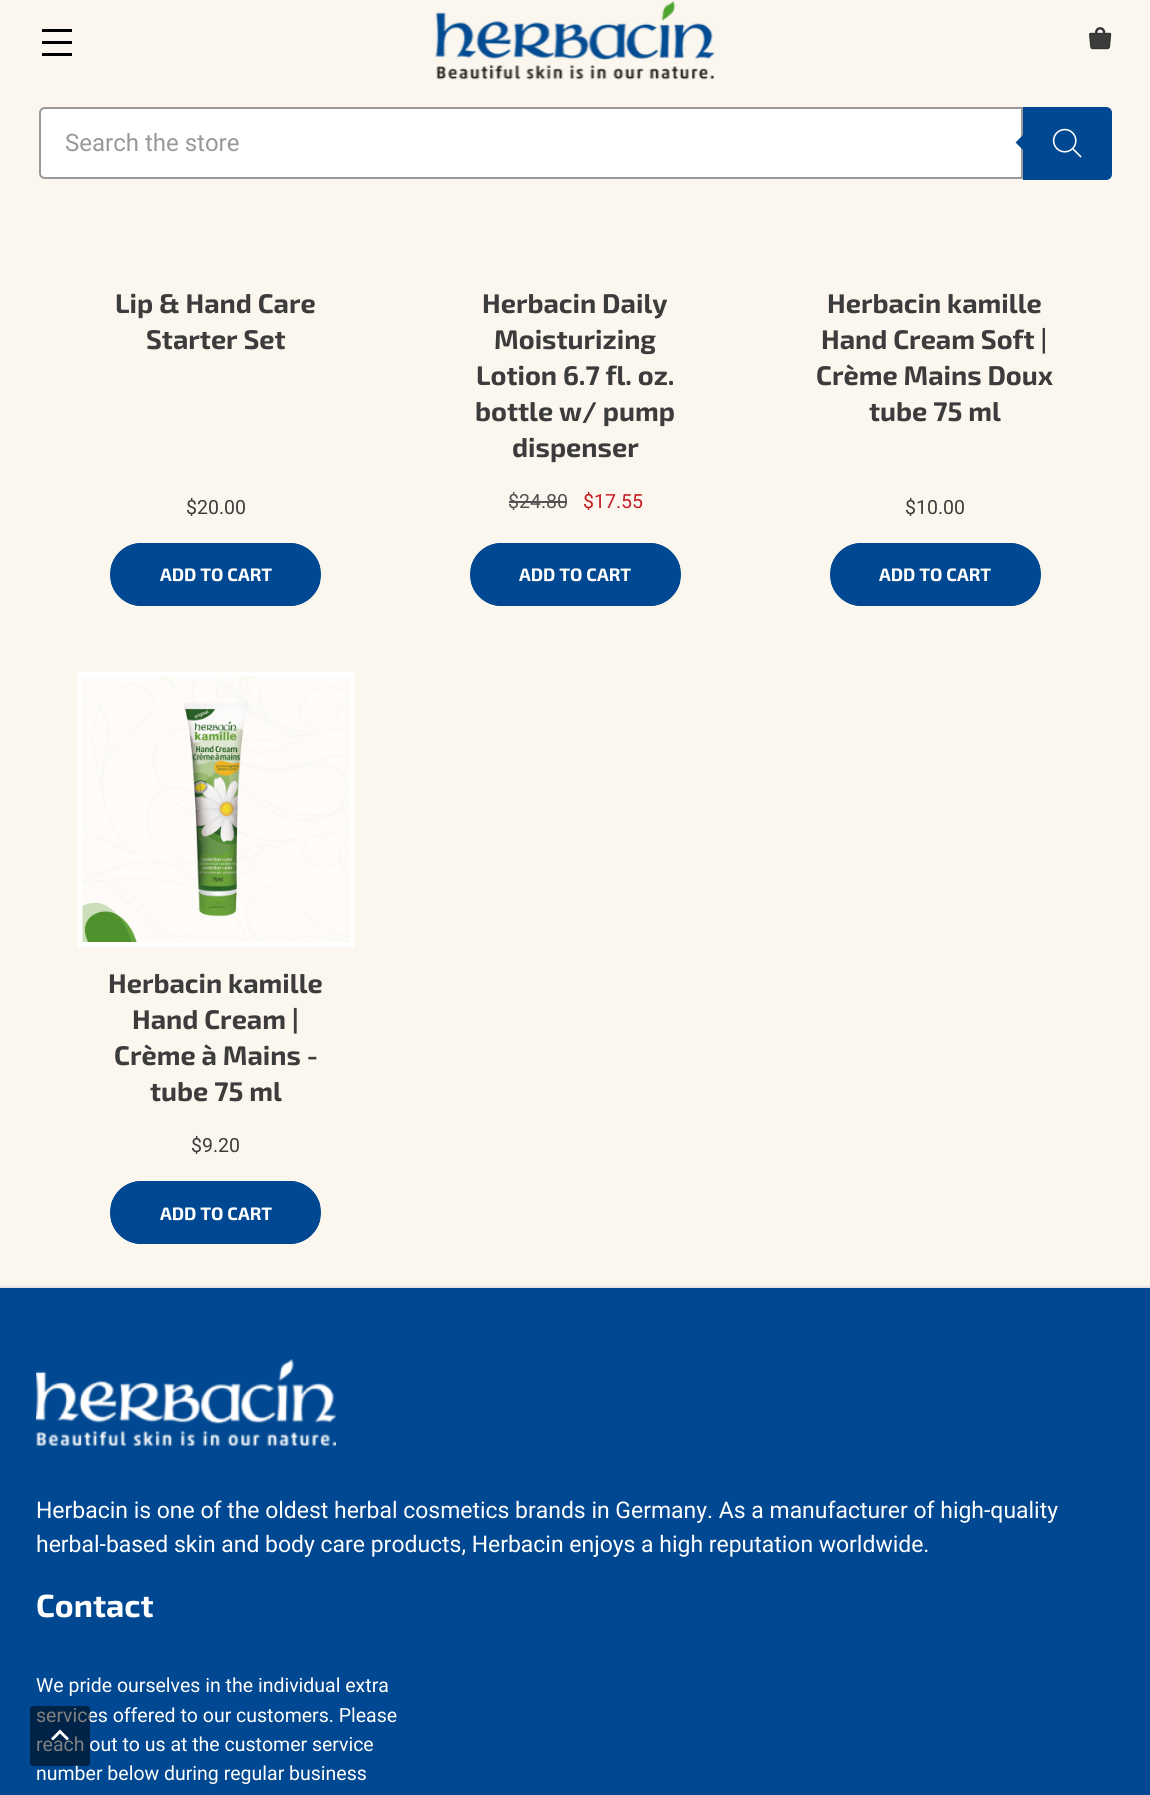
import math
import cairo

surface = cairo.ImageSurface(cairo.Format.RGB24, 1150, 1795)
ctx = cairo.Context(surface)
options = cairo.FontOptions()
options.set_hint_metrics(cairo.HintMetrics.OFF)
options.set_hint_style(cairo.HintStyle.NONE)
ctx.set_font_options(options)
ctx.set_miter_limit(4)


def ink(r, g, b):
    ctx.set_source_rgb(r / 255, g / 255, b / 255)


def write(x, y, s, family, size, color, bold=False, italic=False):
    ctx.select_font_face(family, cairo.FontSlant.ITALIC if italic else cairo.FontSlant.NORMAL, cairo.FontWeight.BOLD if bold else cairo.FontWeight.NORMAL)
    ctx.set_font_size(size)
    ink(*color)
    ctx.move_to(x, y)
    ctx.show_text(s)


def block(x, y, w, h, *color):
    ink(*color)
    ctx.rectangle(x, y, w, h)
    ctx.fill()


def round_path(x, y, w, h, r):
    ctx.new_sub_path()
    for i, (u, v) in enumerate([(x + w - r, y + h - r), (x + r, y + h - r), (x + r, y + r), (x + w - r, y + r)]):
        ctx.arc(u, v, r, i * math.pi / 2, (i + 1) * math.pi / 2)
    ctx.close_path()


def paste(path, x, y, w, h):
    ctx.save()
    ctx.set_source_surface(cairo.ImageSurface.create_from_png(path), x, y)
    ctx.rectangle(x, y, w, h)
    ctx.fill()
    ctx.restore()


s1 = dict(family="Roboto", size=24, color=(153, 153, 153))
s2 = dict(family="Exo 2", size=27, color=(61, 60, 61), bold=True)
s3 = dict(family="Roboto", size=19.5, color=(61, 60, 61))
s4 = dict(family="Exo 2", size=18, color=(255, 255, 255), bold=True)
s5 = dict(family="Roboto", size=19.5, color=(83, 83, 83))
s6 = dict(family="Roboto", size=19.5, color=(196, 28, 34))
s7 = dict(family="Roboto", size=22.95, color=(255, 255, 255))
s8 = dict(family="Exo 2", size=32, color=(255, 255, 255), bold=True)
s9 = dict(family="Roboto", size=19.5, color=(255, 255, 255))

ink(252, 247, 238)
ctx.paint()
block(42, 41, 30, 3, 0, 0, 0)
block(42, 29, 30, 3, 0, 0, 0)
block(42, 53, 30, 3, 0, 0, 0)
paste("pic1.png", 435, 1, 280, 79)
paste("pic2.png", 1089, 27, 23, 23)
ink(255, 255, 255)
ctx.new_path()
ctx.move_to(45, 108)
ctx.line_to(1022, 108)
ctx.line_to(1022, 178)
ctx.line_to(45, 178)
ctx.curve_to(42, 178, 40, 176, 40, 173)
ctx.line_to(40, 113)
ctx.curve_to(40, 110, 42, 108, 45, 108)
ctx.close_path()
ctx.fill_preserve()
ink(153, 153, 153)
ctx.stroke()
write(65, 151, "Search the store", **s1)
ink(0, 72, 145)
ctx.new_path()
ctx.move_to(1024, 108)
ctx.line_to(1106, 108)
ctx.curve_to(1109, 108, 1111, 110, 1111, 113)
ctx.line_to(1111, 174)
ctx.curve_to(1111, 177, 1109, 179, 1106, 179)
ctx.line_to(1024, 179)
ctx.close_path()
ctx.fill_preserve()
ctx.stroke()
ctx.new_path()
ctx.move_to(1027.5, 130.5)
ctx.line_to(1027.5, 154.5)
ctx.line_to(1015.5, 142.5)
ctx.close_path()
ctx.fill()
paste("pic3.png", 1052, 128, 30, 30)
write(115, 313, "Lip & Hand Care", **s2)
write(146, 349, "Starter Set", **s2)
write(186, 514, "$20.00", **s3)
ctx.save()
round_path(110, 543, 211, 63, 31.5)
ctx.clip()
block(111, 543, 209, 63, 0, 72, 145)
ctx.restore()
round_path(111, 544, 209, 61, 30.5)
ink(0, 72, 145)
ctx.stroke()
write(160, 581, "ADD TO CART", **s4)
write(482, 313, "Herbacin Daily", **s2)
write(494, 349, "Moisturizing", **s2)
write(476, 385, "Lotion 6.7 fl. oz.", **s2)
write(475, 421, "bottle w/ pump", **s2)
write(512, 457, "dispenser", **s2)
write(508, 508, "$24.80", **s5)
block(509, 501, 58, 2, 83, 83, 83)
write(583, 508, "$17.55", **s6)
ctx.save()
round_path(470, 543, 211, 63, 31.5)
ctx.clip()
block(471, 543, 209, 63, 0, 72, 145)
ctx.restore()
round_path(471, 544, 209, 61, 30.5)
ink(0, 72, 145)
ctx.stroke()
write(519, 581, "ADD TO CART", **s4)
write(827, 313, "Herbacin kamille", **s2)
write(821, 349, "Hand Cream Soft |", **s2)
write(816, 385, "Crème Mains Doux", **s2)
write(869, 421, "tube 75 ml", **s2)
write(905, 514, "$10.00", **s3)
ctx.save()
round_path(830, 543, 211, 63, 31.5)
ctx.clip()
block(831, 543, 209, 63, 0, 72, 145)
ctx.restore()
round_path(831, 544, 209, 61, 30.5)
ink(0, 72, 145)
ctx.stroke()
write(879, 581, "ADD TO CART", **s4)
block(78, 672, 276, 275, 255, 255, 255)
paste("pic4.png", 82, 676, 268, 266)
write(108, 993, "Herbacin kamille", **s2)
write(132, 1029, "Hand Cream |", **s2)
write(114, 1065, "Crème à Mains -", **s2)
write(150, 1101, "tube 75 ml", **s2)
write(191, 1152, "$9.20", **s3)
ctx.save()
round_path(110, 1181, 211, 63, 31.5)
ctx.clip()
block(111, 1181, 209, 63, 0, 72, 145)
ctx.restore()
round_path(111, 1182, 209, 61, 30.5)
ink(0, 72, 145)
ctx.stroke()
write(160, 1220, "ADD TO CART", **s4)
block(0, 1288, 1150, 507, 0, 72, 145)
block(0, 1286, 1150, 2, 229, 229, 229)
paste("pic5.png", 36, 1359, 300, 87)
write(36, 1518, "Herbacin is one of the oldest herbal cosmetics brands in Germany. As a manufacturer of high-quality", **s7)
write(36, 1552, "herbal-based skin and body care products, Herbacin enjoys a high reputation worldwide.", **s7)
write(36, 1617, "Contact", **s8)
write(36, 1692, "We pride ourselves in the individual extra", **s9)
write(36, 1722, "services offered to our customers. Please", **s9)
write(36, 1751, "reach out to us at the customer service", **s9)
write(36, 1780, "number below during regular business", **s9)
ctx.set_source_rgba(0, 0, 0, 0.5)
round_path(30, 1706, 60, 60, 3)
ctx.fill()
ink(255, 255, 255)
ctx.new_path()
ctx.move_to(60, 1729.5)
ctx.line_to(51, 1738.5)
ctx.line_to(53, 1740.5)
ctx.line_to(60, 1733.5)
ctx.line_to(67, 1740.5)
ctx.line_to(69, 1738.5)
ctx.close_path()
ctx.fill()
surface.write_to_png("screenshot.png")
